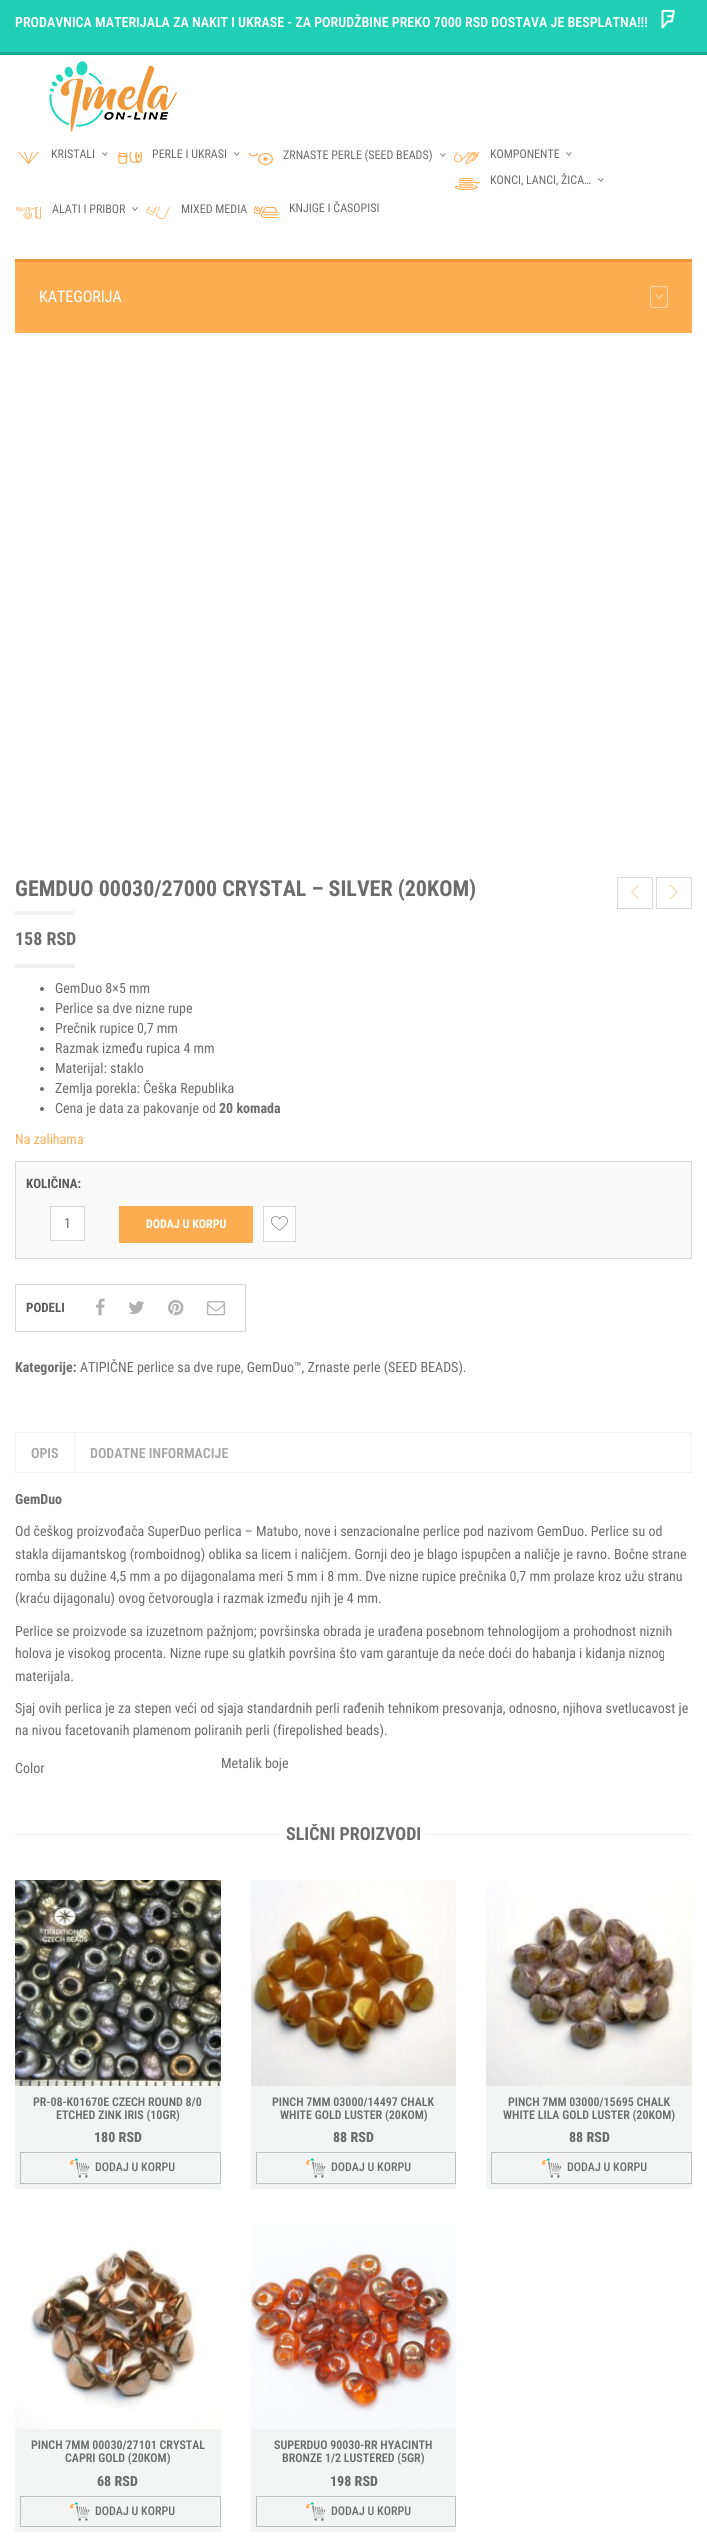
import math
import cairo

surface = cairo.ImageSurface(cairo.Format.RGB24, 707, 2544)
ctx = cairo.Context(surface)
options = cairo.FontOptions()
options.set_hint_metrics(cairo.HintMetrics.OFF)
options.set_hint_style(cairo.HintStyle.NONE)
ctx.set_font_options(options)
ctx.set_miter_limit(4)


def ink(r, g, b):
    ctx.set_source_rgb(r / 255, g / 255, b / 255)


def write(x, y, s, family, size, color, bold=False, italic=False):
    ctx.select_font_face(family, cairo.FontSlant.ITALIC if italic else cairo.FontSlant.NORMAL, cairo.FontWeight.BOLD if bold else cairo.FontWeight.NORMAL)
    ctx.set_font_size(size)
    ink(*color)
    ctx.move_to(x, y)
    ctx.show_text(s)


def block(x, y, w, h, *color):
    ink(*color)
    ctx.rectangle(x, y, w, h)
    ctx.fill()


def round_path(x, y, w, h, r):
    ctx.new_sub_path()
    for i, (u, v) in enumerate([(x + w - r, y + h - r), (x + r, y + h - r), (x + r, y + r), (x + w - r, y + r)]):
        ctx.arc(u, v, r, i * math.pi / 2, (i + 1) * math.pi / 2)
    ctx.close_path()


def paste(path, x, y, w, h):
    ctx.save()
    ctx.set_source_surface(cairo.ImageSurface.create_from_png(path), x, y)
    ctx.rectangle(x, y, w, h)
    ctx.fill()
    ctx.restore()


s1 = dict(family="Roboto Condensed SemiBold", size=14, color=(255, 255, 255))
s2 = dict(family="Roboto Condensed", size=12, color=(109, 108, 108))
s3 = dict(family="Roboto Condensed", size=16, color=(255, 255, 255))
s4 = dict(family="Roboto Condensed", size=22, color=(109, 108, 108), bold=True)
s5 = dict(family="Roboto Condensed", size=18, color=(109, 108, 108), bold=True)
s6 = dict(family="Roboto Condensed", size=14, color=(109, 108, 108))
s7 = dict(family="Roboto Condensed", size=14, color=(109, 108, 108), bold=True)
s8 = dict(family="Roboto Condensed", size=14, color=(255, 173, 83))
s9 = dict(family="Roboto Condensed", size=13, color=(91, 90, 90), bold=True)
s10 = dict(family="Roboto Condensed", size=12, color=(255, 255, 255), bold=True)
s11 = dict(family="Roboto Condensed SemiBold", size=14, color=(165, 165, 165))
s12 = dict(family="Roboto Condensed SemiBold", size=12, color=(109, 108, 108))
s13 = dict(family="Roboto Condensed ExtraBold", size=14, color=(109, 108, 108))
s14 = dict(family="Roboto Condensed Medium", size=12, color=(109, 108, 108))

ink(255, 255, 255)
ctx.paint()
block(0, 0, 707, 52, 31, 208, 183)
block(0, 52, 707, 3, 19, 169, 146)
write(15, 27, "PRODAVNICA MATERIJALA ZA NAKIT I UKRASE - ZA PORUDŽBINE PREKO 7000 RSD DOSTAVA JE BESPLATNA!!!", **s1)
paste("pic1.png", 661, 9, 14, 20)
paste("pic2.png", 49, 61, 128, 71)
paste("pic3.png", 18, 152, 21, 12)
write(51, 158, "KRISTALI", **s2)
paste("pic4.png", 102, 152, 6, 4)
paste("pic5.png", 118, 152, 24, 12)
write(152, 158, "PERLE I UKRASI", **s2)
paste("pic6.png", 234, 152, 6, 4)
paste("pic7.png", 248, 153, 25, 12)
write(283, 159, "ZRNASTE PERLE (SEED BEADS)", **s2)
paste("pic8.png", 440, 153, 6, 4)
paste("pic9.png", 454, 152, 26, 12)
write(490, 158, "KOMPONENTE", **s2)
paste("pic10.png", 566, 152, 6, 4)
paste("pic11.png", 455, 178, 25, 12)
write(490, 184, "KONCI, LANCI, ŽICA…", **s2)
paste("pic12.png", 598, 178, 6, 4)
paste("pic13.png", 16, 207, 25, 12)
write(52, 213, "ALATI I PRIBOR", **s2)
paste("pic14.png", 132, 207, 6, 4)
paste("pic15.png", 146, 207, 24, 12)
write(181, 213, "MIXED MEDIA", **s2)
paste("pic16.png", 254, 206, 24, 12)
write(289, 212, "KNJIGE I ČASOPISI", **s2)
block(15, 262, 677, 71, 255, 173, 83)
block(15, 259, 677, 3, 237, 150, 57)
write(39, 302, "KATEGORIJA", **s3)
round_path(650.5, 286.5, 17, 21, 2.5)
ink(255, 214, 169)
ctx.set_line_width(1)
ctx.stroke()
paste("pic17.png", 655, 294, 8, 6)
write(15, 896, "GEMDUO 00030/27000 CRYSTAL – SILVER (20KOM)", **s4)
ctx.rectangle(617.5, 877.5, 35, 31)
ink(219, 216, 216)
ctx.stroke()
paste("pic18.png", 631, 885, 8, 14)
ctx.rectangle(656.5, 877.5, 35, 31)
ctx.stroke()
paste("pic19.png", 670, 885, 8, 14)
block(15, 911, 60, 4, 242, 242, 242)
write(15, 945, "158 RSD", **s5)
block(15, 964, 60, 4, 242, 242, 242)
ink(109, 108, 108)
ctx.new_path()
ctx.arc(42, 989, 2, 0, 2 * math.pi)
ctx.fill()
write(55, 993, "GemDuo 8×5 mm", **s6)
ctx.new_path()
ctx.arc(42, 1009, 2, 0, 2 * math.pi)
ctx.fill()
write(55, 1013, "Perlice sa dve nizne rupe", **s6)
ctx.new_path()
ctx.arc(42, 1029, 2, 0, 2 * math.pi)
ctx.fill()
write(55, 1033, "Prečnik rupice 0,7 mm", **s6)
ctx.new_path()
ctx.arc(42, 1049, 2, 0, 2 * math.pi)
ctx.fill()
write(55, 1053, "Razmak između rupica 4 mm", **s6)
ctx.new_path()
ctx.arc(42, 1069, 2, 0, 2 * math.pi)
ctx.fill()
write(55, 1073, "Materijal: staklo", **s6)
ctx.new_path()
ctx.arc(42, 1089, 2, 0, 2 * math.pi)
ctx.fill()
write(55, 1093, "Zemlja porekla: Češka Republika", **s6)
ctx.new_path()
ctx.arc(42, 1109, 2, 0, 2 * math.pi)
ctx.fill()
write(55, 1113, "Cena je data za pakovanje od", **s6)
write(219, 1113, "20 komada", **s7)
write(15, 1144, "Na zalihama", **s8)
ink(250, 250, 250)
ctx.rectangle(15.5, 1161.5, 676, 97)
ctx.fill_preserve()
ink(219, 216, 216)
ctx.stroke()
write(26, 1188, "KOLIČINA:", **s9)
ink(255, 255, 255)
ctx.rectangle(50.5, 1206.5, 34, 34)
ctx.fill_preserve()
ink(219, 216, 216)
ctx.stroke()
write(64, 1228, "1", **s6)
block(119, 1206, 134, 37, 255, 173, 83)
write(146, 1228, "DODAJ U KORPU", **s10)
ctx.rectangle(263.5, 1206.5, 32, 35)
ctx.fill_preserve()
ink(219, 216, 216)
ctx.stroke()
paste("pic20.png", 271, 1216, 17, 15)
ctx.rectangle(15.5, 1284.5, 230, 47)
ctx.stroke()
write(26, 1312, "PODELI", **s9)
paste("pic21.png", 96, 1298, 9, 18)
paste("pic22.png", 128, 1301, 16, 13)
paste("pic23.png", 168, 1299, 16, 17)
paste("pic24.png", 207, 1301, 18, 15)
write(15, 1372, "Kategorije:", **s7)
write(80, 1372, "ATIPIČNE perlice sa dve rupe, GemDuo™, Zrnaste perle (SEED BEADS).", **s6)
block(15, 1432, 677, 1, 242, 242, 242)
block(691, 1432, 1, 41, 242, 242, 242)
block(15, 1472, 677, 1, 242, 242, 242)
block(15, 1433, 1, 40, 242, 242, 242)
write(31, 1458, "OPIS", **s11)
block(74, 1433, 1, 40, 242, 242, 242)
write(90, 1458, "DODATNE INFORMACIJE", **s11)
write(15, 1504, "GemDuo", **s7)
write(15, 1536, "Od češkog proizvođača SuperDuo perlica – Matubo, nove i senzacionalne perlice pod nazivom GemDuo. Perlice su od", **s6)
write(15, 1559, "stakla dijamantskog (romboidnog) oblika sa licem i naličjem. Gornji deo je blago ispupčen a naličje je ravno. Bočne strane", **s6)
write(15, 1581, "romba su dužine 4,5 mm a po dijagonalama meri 5 mm i 8 mm. Dve nizne rupice prečnika 0,7 mm prolaze kroz užu stranu", **s6)
write(15, 1603, "(kraću dijagonalu) ovog četvorougla i razmak između njih je 4 mm.", **s6)
write(15, 1636, "Perlice se proizvode sa izuzetnom pažnjom; površinska obrada je urađena posebnom tehnologijom a prohodnost niznih", **s6)
write(15, 1658, "holova je visokog procenta. Nizne rupe su glatkih površina što vam garantuje da neće doći do habanja i kidanja niznog", **s6)
write(15, 1681, "materijala.", **s6)
write(15, 1713, "Sjaj ovih perlica je za stepen veći od sjaja standardnih perli rađenih tehnikom presovanja, odnosno, njihova svetlucavost je", **s6)
write(15, 1735, "na nivou facetovanih plamenom poliranih perli (firepolished beads).", **s6)
write(15, 1773, "Color", **s6)
write(221, 1768, "Metalik boje", **s6)
block(15, 1834, 266, 1, 242, 242, 242)
ctx.save()
ctx.rectangle(15, 1824, 677, 21)
ctx.clip()
write(286, 1840, "SLIČNI PROIZVODI", **s5)
ctx.restore()
block(426, 1834, 266, 1, 242, 242, 242)
block(15, 2086, 206, 103, 243, 244, 244)
paste("pic25.png", 15, 1880, 206, 206)
write(33, 2106, "PR-08-K01670E CZECH ROUND 8/0", **s12)
write(56, 2119, "ETCHED ZINK IRIS (10GR)", **s12)
write(94, 2142, "180 RSD", **s13)
ctx.rectangle(20.5, 2152.5, 200, 31)
ink(192, 193, 195)
ctx.stroke()
paste("pic26.png", 70, 2158, 20, 20)
write(95, 2171, "DODAJ U KORPU", **s14)
block(251, 2086, 205, 103, 243, 244, 244)
paste("pic27.png", 251, 1880, 205, 206)
write(272, 2106, "PINCH 7MM 03000/14497 CHALK", **s12)
write(280, 2119, "WHITE GOLD LUSTER (20KOM)", **s12)
write(333, 2142, "88 RSD", **s13)
ctx.rectangle(256.5, 2152.5, 199, 31)
ink(192, 193, 195)
ctx.stroke()
paste("pic26.png", 306, 2158, 20, 20)
write(331, 2171, "DODAJ U KORPU", **s14)
block(486, 2086, 206, 103, 243, 244, 244)
paste("pic28.png", 486, 1880, 206, 206)
write(508, 2106, "PINCH 7MM 03000/15695 CHALK", **s12)
write(503, 2119, "WHITE LILA GOLD LUSTER (20KOM)", **s12)
write(569, 2142, "88 RSD", **s13)
ctx.rectangle(491.5, 2152.5, 200, 31)
ink(192, 193, 195)
ctx.stroke()
paste("pic29.png", 542, 2158, 20, 20)
write(567, 2171, "DODAJ U KORPU", **s14)
block(15, 2429, 206, 103, 243, 244, 244)
paste("pic30.png", 15, 2224, 206, 205)
write(31, 2449, "PINCH 7MM 00030/27101 CRYSTAL", **s12)
write(65, 2462, "CAPRI GOLD (20KOM)", **s12)
write(97, 2486, "68 RSD", **s13)
ctx.rectangle(20.5, 2496.5, 200, 30)
ink(192, 193, 195)
ctx.stroke()
paste("pic31.png", 70, 2502, 20, 19)
write(95, 2515, "DODAJ U KORPU", **s14)
block(251, 2429, 205, 103, 243, 244, 244)
paste("pic32.png", 251, 2224, 205, 205)
write(274, 2449, "SUPERDUO 90030-RR HYACINTH", **s12)
write(282, 2462, "BRONZE 1/2 LUSTERED (5GR)", **s12)
write(330, 2486, "198 RSD", **s13)
ctx.rectangle(256.5, 2496.5, 199, 30)
ink(192, 193, 195)
ctx.stroke()
paste("pic31.png", 306, 2502, 20, 19)
write(331, 2515, "DODAJ U KORPU", **s14)
surface.write_to_png("screenshot.png")
